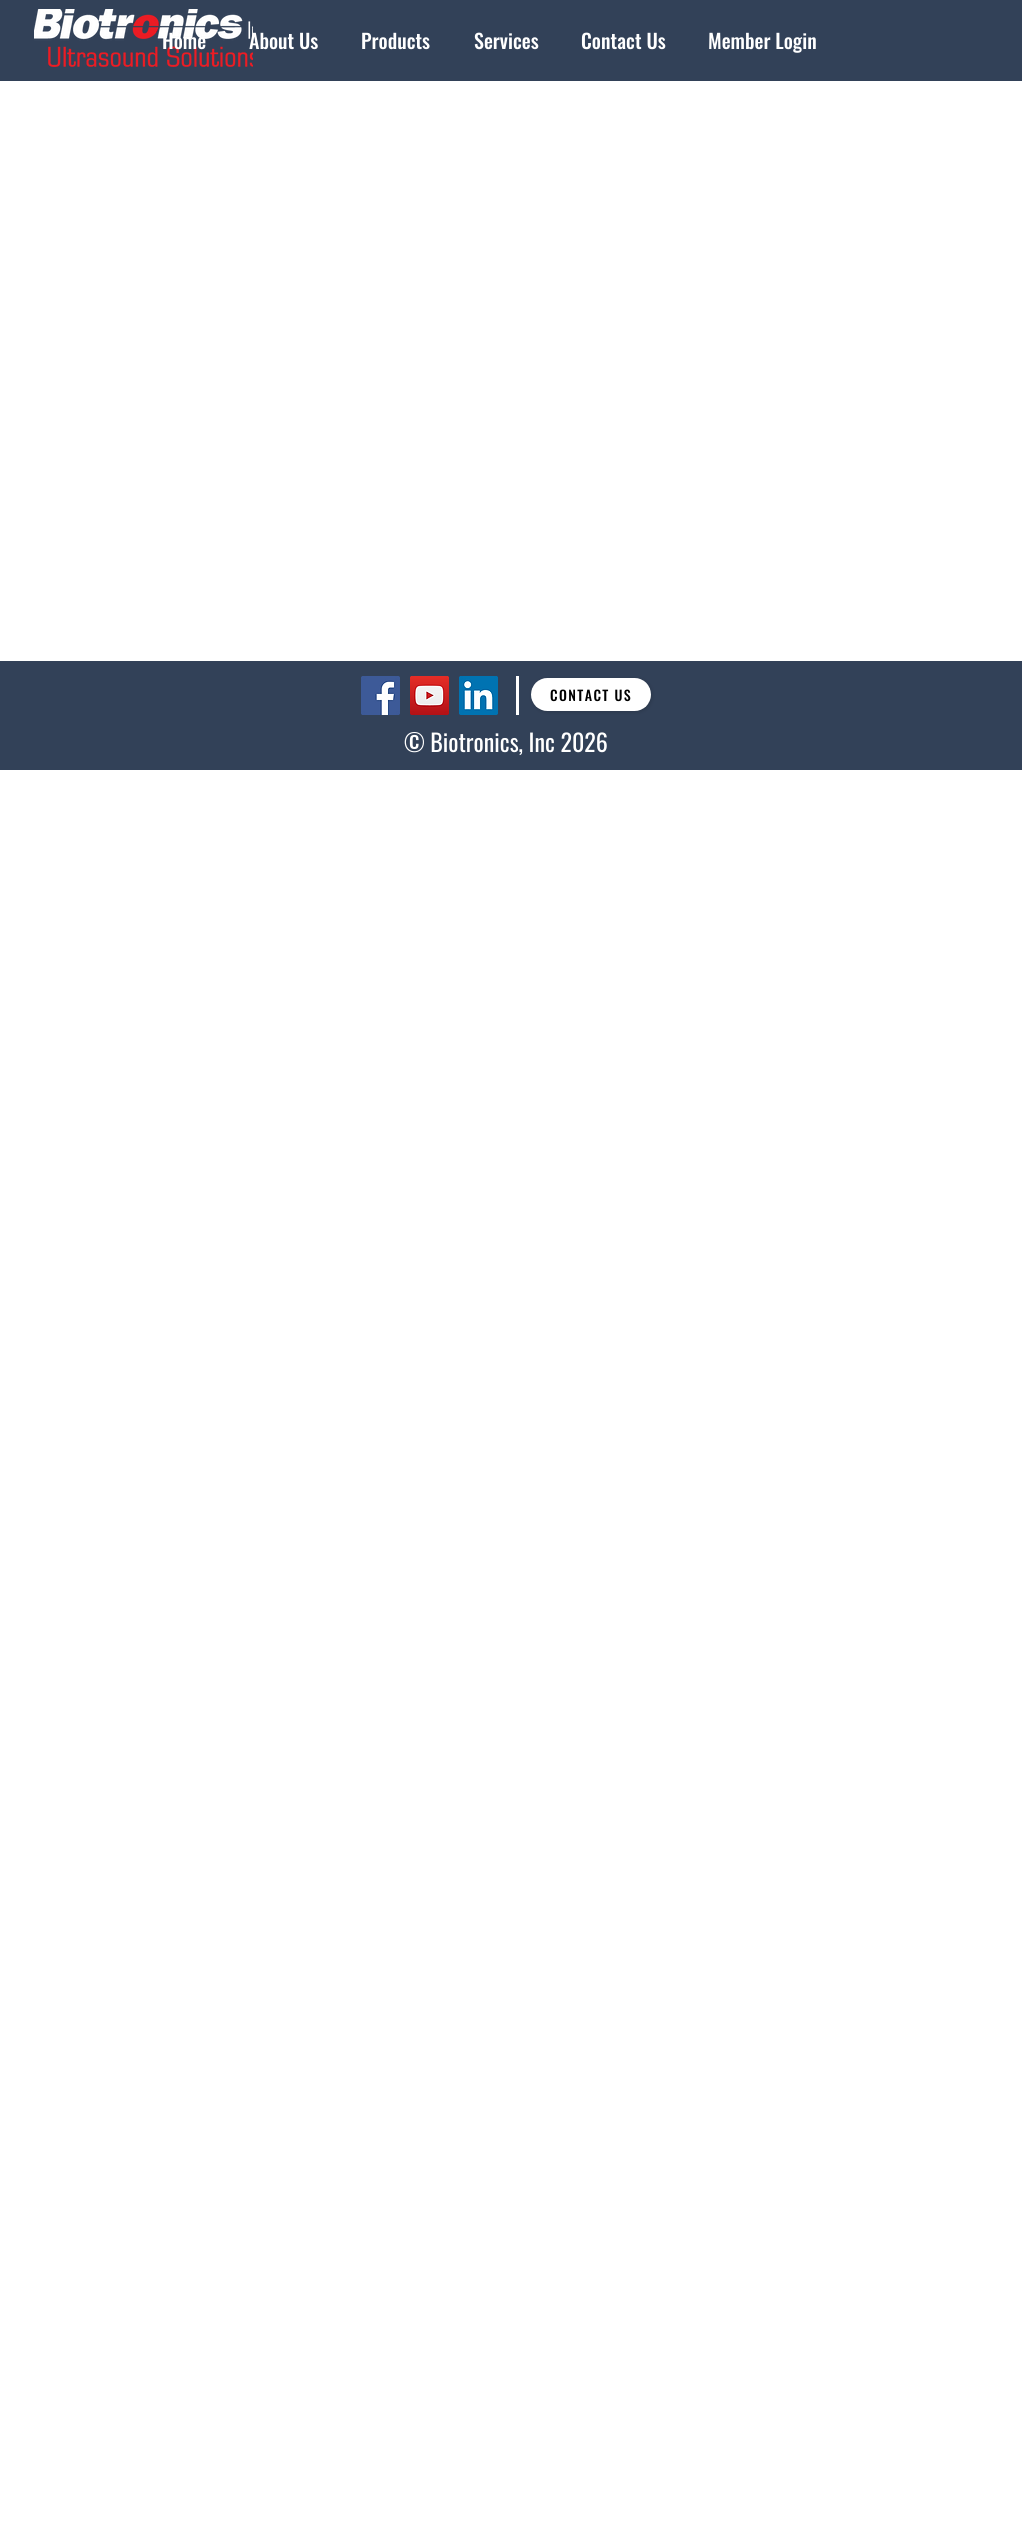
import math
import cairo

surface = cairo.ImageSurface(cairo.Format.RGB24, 1022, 2543)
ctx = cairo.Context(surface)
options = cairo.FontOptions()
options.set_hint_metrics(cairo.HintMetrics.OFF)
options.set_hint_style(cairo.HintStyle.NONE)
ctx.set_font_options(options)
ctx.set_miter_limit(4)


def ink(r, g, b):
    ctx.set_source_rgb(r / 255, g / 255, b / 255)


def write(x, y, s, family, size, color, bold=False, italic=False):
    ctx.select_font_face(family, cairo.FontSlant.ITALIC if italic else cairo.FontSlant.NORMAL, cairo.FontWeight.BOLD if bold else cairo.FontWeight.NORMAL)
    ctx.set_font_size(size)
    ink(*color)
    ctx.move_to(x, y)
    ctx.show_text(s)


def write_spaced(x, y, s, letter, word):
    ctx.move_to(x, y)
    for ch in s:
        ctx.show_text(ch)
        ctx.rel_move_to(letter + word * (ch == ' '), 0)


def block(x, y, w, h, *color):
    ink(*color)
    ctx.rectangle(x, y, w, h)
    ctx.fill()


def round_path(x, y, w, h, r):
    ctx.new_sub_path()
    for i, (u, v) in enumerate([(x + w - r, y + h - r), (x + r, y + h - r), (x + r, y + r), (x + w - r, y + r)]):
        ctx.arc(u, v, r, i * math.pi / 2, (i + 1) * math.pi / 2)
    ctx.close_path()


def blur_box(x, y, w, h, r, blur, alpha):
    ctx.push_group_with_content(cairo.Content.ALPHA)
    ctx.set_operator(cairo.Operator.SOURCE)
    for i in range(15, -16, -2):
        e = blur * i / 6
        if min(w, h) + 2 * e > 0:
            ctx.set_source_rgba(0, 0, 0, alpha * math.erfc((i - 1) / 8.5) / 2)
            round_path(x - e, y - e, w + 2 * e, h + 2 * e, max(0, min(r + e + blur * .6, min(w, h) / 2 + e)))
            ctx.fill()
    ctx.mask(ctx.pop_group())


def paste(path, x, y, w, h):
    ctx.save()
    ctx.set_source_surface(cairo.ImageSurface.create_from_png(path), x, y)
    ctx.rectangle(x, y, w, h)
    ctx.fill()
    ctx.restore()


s1 = dict(family="Oswald Medium", size=20, color=(255, 255, 255))
s2 = dict(family="Oswald", size=24, color=(255, 255, 255))

ink(255, 255, 255)
ctx.paint()
block(0, 0, 1022, 81, 50, 65, 88)
paste("pic1.png", 34, 9, 219, 58)
write(162, 49, "Home", **s1)
write(249, 49, "About Us", **s1)
write(361, 49, "Products", **s1)
write(474, 49, "Services", **s1)
write(581, 49, "Contact Us", **s1)
write(708, 49, "Member Login", **s1)
block(0, 661, 1022, 109, 50, 65, 88)
paste("pic2.png", 361, 676, 39, 39)
paste("pic3.png", 410, 676, 39, 39)
paste("pic4.png", 459, 676, 39, 39)
block(516, 676, 3, 39, 255, 255, 255)
ink(0, 0, 0)
blur_box(532, 679, 120, 33, 16.5, 2, 0.15)
paste("pic5.png", 531, 678, 120, 33)
ctx.set_font_size(14)
ink(0, 0, 0)
write_spaced(550, 701, "CONTACT US", 1.4, 0)
write(404, 752, "© Biotronics, Inc 2026", **s2)
surface.write_to_png("screenshot.png")
